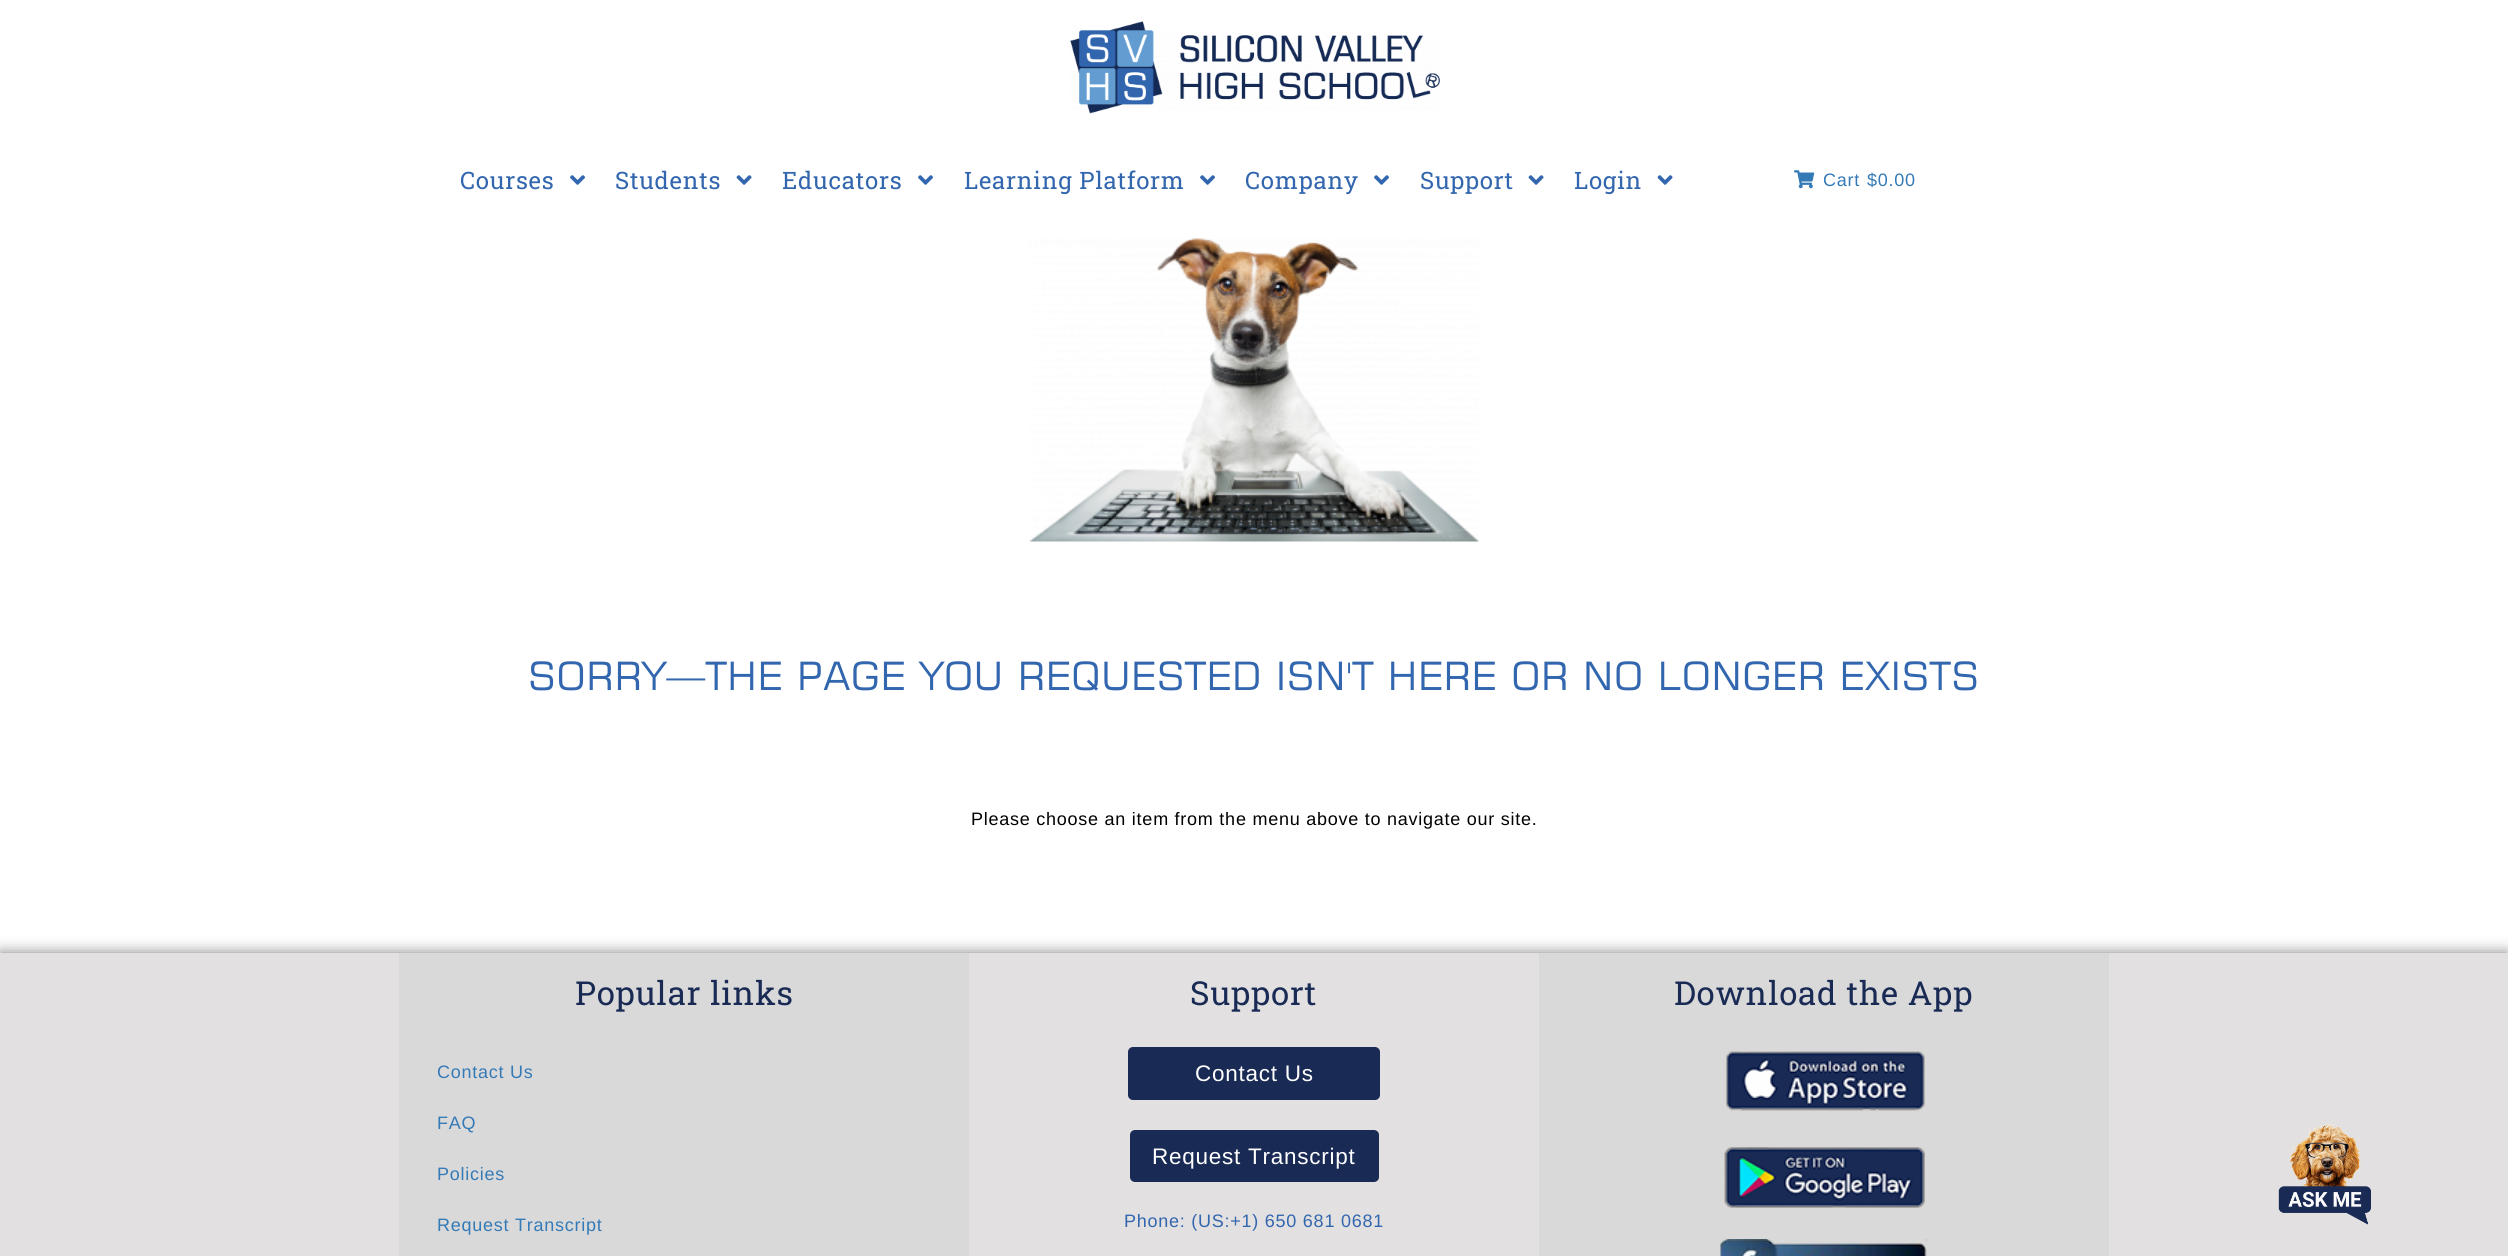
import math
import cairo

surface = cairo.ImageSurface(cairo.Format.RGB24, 2508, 1256)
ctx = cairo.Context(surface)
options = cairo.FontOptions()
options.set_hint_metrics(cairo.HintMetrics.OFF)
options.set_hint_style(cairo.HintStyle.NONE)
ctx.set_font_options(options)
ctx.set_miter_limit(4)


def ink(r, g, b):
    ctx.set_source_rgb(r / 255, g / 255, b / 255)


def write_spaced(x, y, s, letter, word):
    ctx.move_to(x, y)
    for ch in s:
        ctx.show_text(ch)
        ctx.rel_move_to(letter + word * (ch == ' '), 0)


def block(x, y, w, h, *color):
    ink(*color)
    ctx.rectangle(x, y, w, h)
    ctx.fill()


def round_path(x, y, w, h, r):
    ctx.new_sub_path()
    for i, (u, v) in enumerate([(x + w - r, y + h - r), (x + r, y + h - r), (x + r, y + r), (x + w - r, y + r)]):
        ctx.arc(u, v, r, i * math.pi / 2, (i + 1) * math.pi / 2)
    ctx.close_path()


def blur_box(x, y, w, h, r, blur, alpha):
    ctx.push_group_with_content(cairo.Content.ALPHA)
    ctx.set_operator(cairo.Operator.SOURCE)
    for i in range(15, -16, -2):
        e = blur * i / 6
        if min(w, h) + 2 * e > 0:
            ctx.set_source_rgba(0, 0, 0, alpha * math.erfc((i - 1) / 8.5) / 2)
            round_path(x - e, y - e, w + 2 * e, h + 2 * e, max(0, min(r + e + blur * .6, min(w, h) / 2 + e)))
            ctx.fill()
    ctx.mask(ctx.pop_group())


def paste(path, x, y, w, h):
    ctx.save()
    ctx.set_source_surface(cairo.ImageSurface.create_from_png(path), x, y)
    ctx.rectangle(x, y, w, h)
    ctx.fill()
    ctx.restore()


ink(255, 255, 255)
ctx.paint()
paste("pic1.png", 1070, 21, 370, 93)
ctx.select_font_face("Roboto Slab")
ctx.set_font_size(24)
ink(50, 102, 174)
write_spaced(460, 189, "Courses", 0.75, 0)
paste("pic2.png", 570, 175, 15, 10)
write_spaced(615, 189, "Students", 0.75, 0)
paste("pic3.png", 736, 175, 16, 10)
write_spaced(782, 189, "Educators", 0.75, 0)
paste("pic2.png", 918, 175, 15, 10)
write_spaced(964, 189, "Learning Platform", 0.75, 0)
paste("pic2.png", 1200, 175, 15, 10)
write_spaced(1245, 189, "Company", 0.75, 0)
paste("pic2.png", 1374, 175, 15, 10)
write_spaced(1420, 189, "Support", 0.75, 0)
paste("pic3.png", 1528, 175, 16, 10)
write_spaced(1574, 189, "Login", 0.75, 0)
paste("pic3.png", 1657, 175, 16, 10)
paste("pic4.png", 1794, 170, 21, 19)
ctx.select_font_face("Liberation Sans")
ctx.set_font_size(18)
ink(51, 122, 183)
write_spaced(1823, 186, "Cart", 0.75, 0)
write_spaced(1867, 186, "$0.00", 0.75, 0)
paste("pic5.png", 1029, 238, 450, 304)
ctx.select_font_face("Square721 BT")
ctx.set_font_size(39)
ink(50, 102, 174)
write_spaced(528, 690, "SORRY—THE PAGE YOU REQUESTED ISN'T HERE OR NO LONGER EXISTS", 0.75, 0)
ctx.select_font_face("Liberation Sans")
ctx.set_font_size(18)
ink(0, 0, 0)
write_spaced(971, 825, "Please choose an item from the menu above to navigate our site.", 0.75, 0)
ink(0, 0, 0)
blur_box(0, 953, 2508, 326, 0, 7.5, 0.5)
block(0, 953, 2508, 303, 226, 224, 224)
block(399, 953, 570, 303, 218, 217, 217)
ctx.select_font_face("Roboto Slab")
ctx.set_font_size(33)
ink(25, 43, 85)
write_spaced(575, 1005, "Popular links", 0.75, 0)
ctx.select_font_face("Liberation Sans")
ctx.set_font_size(18)
ink(51, 122, 183)
write_spaced(437, 1078, "Contact Us", 0.75, 0)
write_spaced(437, 1129, "FAQ", 0.75, 0)
write_spaced(437, 1180, "Policies", 0.75, 0)
write_spaced(437, 1231, "Request Transcript", 0.75, 0)
ctx.select_font_face("Roboto Slab")
ctx.set_font_size(33)
ink(25, 43, 85)
write_spaced(1190, 1005, "Support", 0.75, 0)
round_path(1128, 1047, 252, 53, 5)
ctx.fill()
ctx.select_font_face("Liberation Sans")
ctx.set_font_size(22.5)
ink(255, 255, 255)
write_spaced(1195, 1081, "Contact Us", 0.75, 0)
ink(25, 43, 85)
round_path(1130, 1130, 249, 52, 5)
ctx.fill()
ink(255, 255, 255)
write_spaced(1152, 1164, "Request Transcript", 0.75, 0)
ctx.set_font_size(18)
ink(50, 102, 174)
write_spaced(1124, 1227, "Phone: (US:+1) 650 681 0681", 0.75, 0)
block(1539, 953, 570, 303, 218, 217, 217)
ctx.select_font_face("Roboto Slab")
ctx.set_font_size(33)
ink(25, 43, 85)
write_spaced(1674, 1005, "Download the App", 0.75, 0)
paste("pic6.png", 1725, 1051, 200, 60)
paste("pic7.png", 1724, 1147, 201, 61)
paste("pic8.png", 1720, 1239, 208, 17)
paste("pic9.png", 2278, 1124, 93, 101)
surface.write_to_png("screenshot.png")
